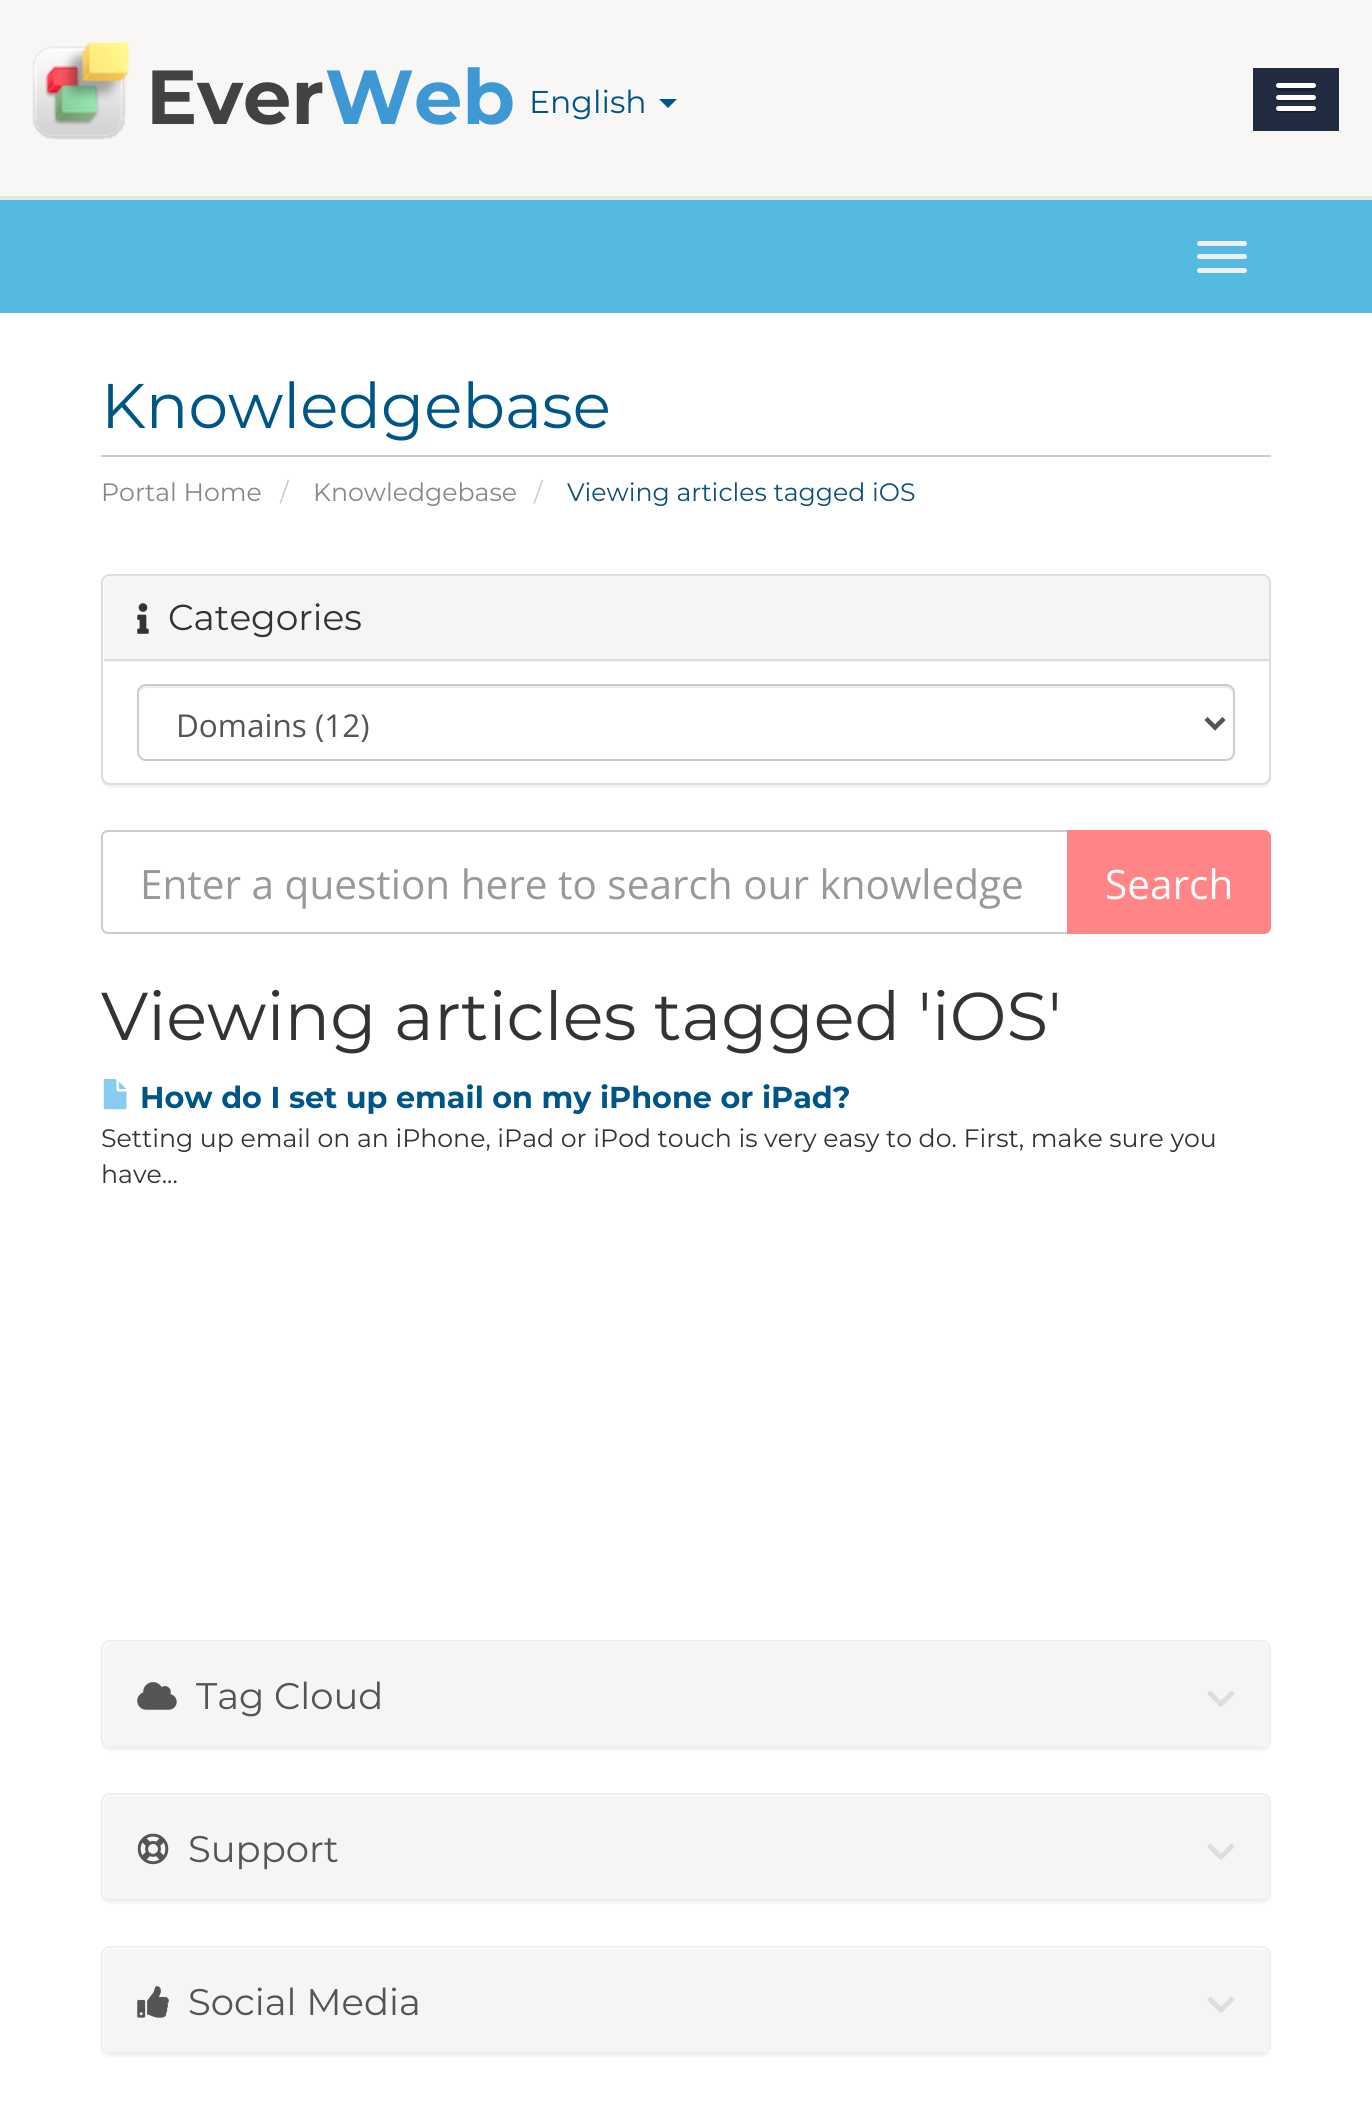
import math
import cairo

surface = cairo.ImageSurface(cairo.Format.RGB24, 1372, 2122)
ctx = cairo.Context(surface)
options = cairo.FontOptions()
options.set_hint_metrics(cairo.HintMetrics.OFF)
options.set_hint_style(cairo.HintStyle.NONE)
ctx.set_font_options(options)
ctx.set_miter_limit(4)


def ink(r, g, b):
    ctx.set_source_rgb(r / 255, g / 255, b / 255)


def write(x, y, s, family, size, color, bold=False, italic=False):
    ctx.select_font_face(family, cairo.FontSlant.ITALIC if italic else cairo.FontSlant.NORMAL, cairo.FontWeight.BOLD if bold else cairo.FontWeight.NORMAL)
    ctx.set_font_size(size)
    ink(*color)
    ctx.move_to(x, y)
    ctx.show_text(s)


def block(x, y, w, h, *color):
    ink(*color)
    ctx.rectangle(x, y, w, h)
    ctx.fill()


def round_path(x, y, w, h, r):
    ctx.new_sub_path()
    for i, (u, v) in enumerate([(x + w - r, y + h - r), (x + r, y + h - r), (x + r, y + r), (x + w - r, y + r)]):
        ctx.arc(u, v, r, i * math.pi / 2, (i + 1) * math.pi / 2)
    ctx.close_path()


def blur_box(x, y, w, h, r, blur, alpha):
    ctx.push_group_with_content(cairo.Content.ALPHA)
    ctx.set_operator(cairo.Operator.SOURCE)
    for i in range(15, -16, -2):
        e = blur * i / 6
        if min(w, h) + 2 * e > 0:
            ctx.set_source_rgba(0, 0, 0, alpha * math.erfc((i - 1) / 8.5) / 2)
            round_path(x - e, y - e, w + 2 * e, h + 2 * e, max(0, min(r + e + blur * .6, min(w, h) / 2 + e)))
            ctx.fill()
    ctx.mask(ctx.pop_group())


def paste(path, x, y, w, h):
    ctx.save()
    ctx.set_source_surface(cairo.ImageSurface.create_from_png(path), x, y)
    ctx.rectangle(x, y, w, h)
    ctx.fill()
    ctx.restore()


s1 = dict(family="Montserrat", size=76.5, color=(66, 66, 66), bold=True)
s2 = dict(family="Montserrat", size=76.5, color=(62, 152, 212), bold=True)
s3 = dict(family="Montserrat", size=31.5, color=(0, 85, 136))
s4 = dict(family="Montserrat", size=63, color=(0, 85, 136))
s5 = dict(family="Montserrat", size=25.2, color=(136, 136, 136))
s6 = dict(family="Montserrat", size=25.2, color=(204, 204, 204))
s7 = dict(family="Montserrat", size=25.2, color=(14, 80, 119))
s8 = dict(family="Montserrat", size=36, color=(51, 51, 51))
s9 = dict(family="Open Sans", size=31.5, color=(85, 85, 85))
s10 = dict(family="Open Sans", size=40.5, color=(153, 153, 153))
s11 = dict(family="Open Sans", size=40.5, color=(255, 255, 255))
s12 = dict(family="Montserrat", size=67.5, color=(51, 51, 51))
s13 = dict(family="Montserrat", size=30.25, color=(0, 85, 136), bold=True)
s14 = dict(family="Montserrat", size=25.2, color=(51, 51, 51))
s15 = dict(family="Montserrat", size=37, color=(85, 85, 85))

ink(248, 248, 248)
ctx.paint()
ink(248, 247, 245)
ctx.new_path()
ctx.move_to(11, 0)
ctx.line_to(1362, 0)
ctx.curve_to(1368, 0, 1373, 5, 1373, 11)
ctx.line_to(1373, 200)
ctx.line_to(0, 200)
ctx.line_to(0, 11)
ctx.curve_to(0, 5, 5, 0, 11, 0)
ctx.close_path()
ctx.fill()
block(0, 196, 1372, 4, 226, 233, 225)
paste("pic1.png", 32, 41, 98, 99)
write(146, 124, "Ever", **s1)
write(325, 124, "Web", **s2)
write(529, 113, "English", **s3)
ctx.new_path()
ctx.move_to(659, 99)
ctx.line_to(677, 99)
ctx.line_to(668, 108)
ctx.close_path()
ctx.fill()
block(1253, 68, 86, 63, 33, 43, 65)
ink(25, 32, 49)
ctx.new_path()
ctx.move_to(1276, 87)
ctx.curve_to(1273, 92, 1284, 91, 1284, 91)
ctx.line_to(1308, 91)
ctx.curve_to(1308, 91, 1319, 92, 1316, 87)
ctx.curve_to(1314, 88, 1278, 88, 1276, 87)
ctx.close_path()
ctx.fill()
ink(255, 255, 255)
round_path(1276, 83, 40, 5, 2.5)
ctx.fill()
ink(25, 32, 49)
ctx.new_path()
ctx.move_to(1276, 98)
ctx.curve_to(1274, 103, 1284, 102, 1284, 102)
ctx.line_to(1308, 102)
ctx.curve_to(1308, 102, 1318, 103, 1316, 98)
ctx.curve_to(1314, 100, 1278, 100, 1276, 98)
ctx.close_path()
ctx.fill()
ink(255, 255, 255)
round_path(1276, 95, 40, 5, 2.5)
ctx.fill()
ink(25, 32, 49)
ctx.new_path()
ctx.move_to(1276, 109)
ctx.curve_to(1274, 114, 1283, 113, 1284, 113)
ctx.line_to(1308, 113)
ctx.curve_to(1309, 113, 1318, 114, 1316, 109)
ctx.line_to(1314, 110)
ctx.line_to(1278, 110)
ctx.close_path()
ctx.fill()
ink(255, 255, 255)
round_path(1276, 106, 40, 5, 2.5)
ctx.fill()
block(0, 200, 1372, 113, 84, 186, 226)
ink(238, 238, 238)
round_path(1197, 241, 50, 5, 2.5)
ctx.fill()
round_path(1197, 254, 50, 5, 2.5)
ctx.fill()
round_path(1197, 268, 50, 5, 2.5)
ctx.fill()
block(0, 313, 1372, 1809, 255, 255, 255)
block(101, 455, 1170, 2, 204, 204, 204)
write(101, 428, "Knowledgebase", **s4)
write(101, 501, "Portal Home", **s5)
write(280, 501, "/", **s6)
write(313, 501, "Knowledgebase", **s5)
write(534, 501, "/", **s6)
write(567, 501, "Viewing articles tagged iOS", **s7)
ink(0, 0, 0)
blur_box(101, 576, 1170, 212, 9, 1, 0.05)
ink(255, 255, 255)
round_path(102, 575, 1168, 209, 8)
ctx.fill_preserve()
ink(221, 221, 221)
ctx.stroke()
ink(245, 245, 245)
ctx.new_path()
ctx.move_to(111, 576)
ctx.line_to(1262, 576)
ctx.curve_to(1266, 576, 1269, 579, 1269, 583)
ctx.line_to(1269, 662)
ctx.line_to(104, 662)
ctx.line_to(104, 583)
ctx.curve_to(104, 579, 107, 576, 111, 576)
ctx.close_path()
ctx.fill()
block(104, 659, 1165, 2, 221, 221, 221)
paste("pic2.png", 137, 603, 12, 31)
write(168, 630, "Categories", **s8)
ink(236, 236, 236)
ctx.new_path()
ctx.move_to(146, 688)
ctx.line_to(1226, 688)
ctx.curve_to(1230, 688, 1233, 692, 1233, 695)
ctx.line_to(1233, 693)
ctx.curve_to(1233, 689, 1230, 686, 1226, 686)
ctx.line_to(147, 686)
ctx.curve_to(143, 686, 140, 689, 140, 693)
ctx.line_to(140, 695)
ctx.curve_to(140, 692, 143, 688, 146, 688)
ctx.close_path()
ctx.fill()
round_path(138, 685, 1096, 75, 8)
ink(204, 204, 204)
ctx.stroke()
ctx.new_path()
ctx.move_to(1206, 718.5)
ctx.line_to(1215, 727.5)
ctx.line_to(1224, 718.5)
ink(85, 85, 85)
ctx.set_line_width(4.5)
ctx.stroke()
write(176, 737, "Domains (12)", **s9)
ctx.new_path()
ctx.move_to(108, 831)
ctx.line_to(1068, 831)
ctx.line_to(1068, 933)
ctx.line_to(108, 933)
ctx.curve_to(104.5, 933, 102, 930.5, 102, 927)
ctx.line_to(102, 837)
ctx.curve_to(102, 833.5, 104.5, 831, 108, 831)
ctx.close_path()
ink(204, 204, 204)
ctx.set_line_width(2)
ctx.stroke()
write(140, 899, "Enter a question here to search our knowledge", **s10)
ink(255, 133, 134)
ctx.new_path()
ctx.move_to(1068, 831)
ctx.line_to(1264, 831)
ctx.curve_to(1267.5, 831, 1270, 833.5, 1270, 837)
ctx.line_to(1270, 927)
ctx.curve_to(1270, 930.5, 1267.5, 933, 1264, 933)
ctx.line_to(1068, 933)
ctx.close_path()
ctx.fill_preserve()
ctx.stroke()
write(1105, 899, "Search", **s11)
write(101, 1040, "Viewing articles tagged 'iOS'", **s12)
paste("pic3.png", 103, 1079, 24, 31)
write(140, 1108, "How do I set up email on my iPhone or iPad?", **s13)
write(101, 1147, "Setting up email on an iPhone, iPad or iPod touch is very easy to do. First, make sure you", **s14)
write(101, 1183, "have...", **s14)
ink(0, 0, 0)
blur_box(101, 1643, 1170, 108, 9, 1, 0.05)
ink(255, 255, 255)
round_path(102, 1641, 1168, 106, 8)
ctx.fill_preserve()
ink(238, 238, 238)
ctx.stroke()
ink(245, 245, 245)
ctx.new_path()
ctx.move_to(111, 1643)
ctx.line_to(1262, 1643)
ctx.curve_to(1266, 1643, 1269, 1646, 1269, 1650)
ctx.line_to(1269, 1746)
ctx.line_to(104, 1746)
ctx.line_to(104, 1650)
ctx.curve_to(104, 1646, 107, 1643, 111, 1643)
ctx.close_path()
ctx.fill()
paste("pic4.png", 137, 1682, 40, 28)
write(196, 1709, "Tag Cloud", **s15)
paste("pic5.png", 1207, 1690, 28, 17)
ink(0, 0, 0)
blur_box(101, 1796, 1170, 108, 9, 1, 0.05)
ink(255, 255, 255)
round_path(102, 1794, 1168, 106, 8)
ctx.fill_preserve()
ink(238, 238, 238)
ctx.stroke()
ink(245, 245, 245)
ctx.new_path()
ctx.move_to(111, 1796)
ctx.line_to(1262, 1796)
ctx.curve_to(1266, 1796, 1269, 1799, 1269, 1803)
ctx.line_to(1269, 1899)
ctx.line_to(104, 1899)
ctx.line_to(104, 1803)
ctx.curve_to(104, 1799, 107, 1796, 111, 1796)
ctx.close_path()
ctx.fill()
paste("pic6.png", 137, 1833, 32, 32)
write(188, 1862, "Support", **s15)
paste("pic5.png", 1207, 1843, 28, 17)
ink(0, 0, 0)
blur_box(101, 1949, 1170, 108, 9, 1, 0.05)
ink(255, 255, 255)
round_path(102, 1947, 1168, 106, 8)
ctx.fill_preserve()
ink(238, 238, 238)
ctx.stroke()
ink(245, 245, 245)
ctx.new_path()
ctx.move_to(111, 1949)
ctx.line_to(1262, 1949)
ctx.curve_to(1266, 1949, 1269, 1952, 1269, 1956)
ctx.line_to(1269, 2052)
ctx.line_to(104, 2052)
ctx.line_to(104, 1956)
ctx.curve_to(104, 1952, 107, 1949, 111, 1949)
ctx.close_path()
ctx.fill()
paste("pic7.png", 137, 1986, 32, 32)
write(188, 2015, "Social Media", **s15)
paste("pic5.png", 1207, 1996, 28, 17)
surface.write_to_png("screenshot.png")
